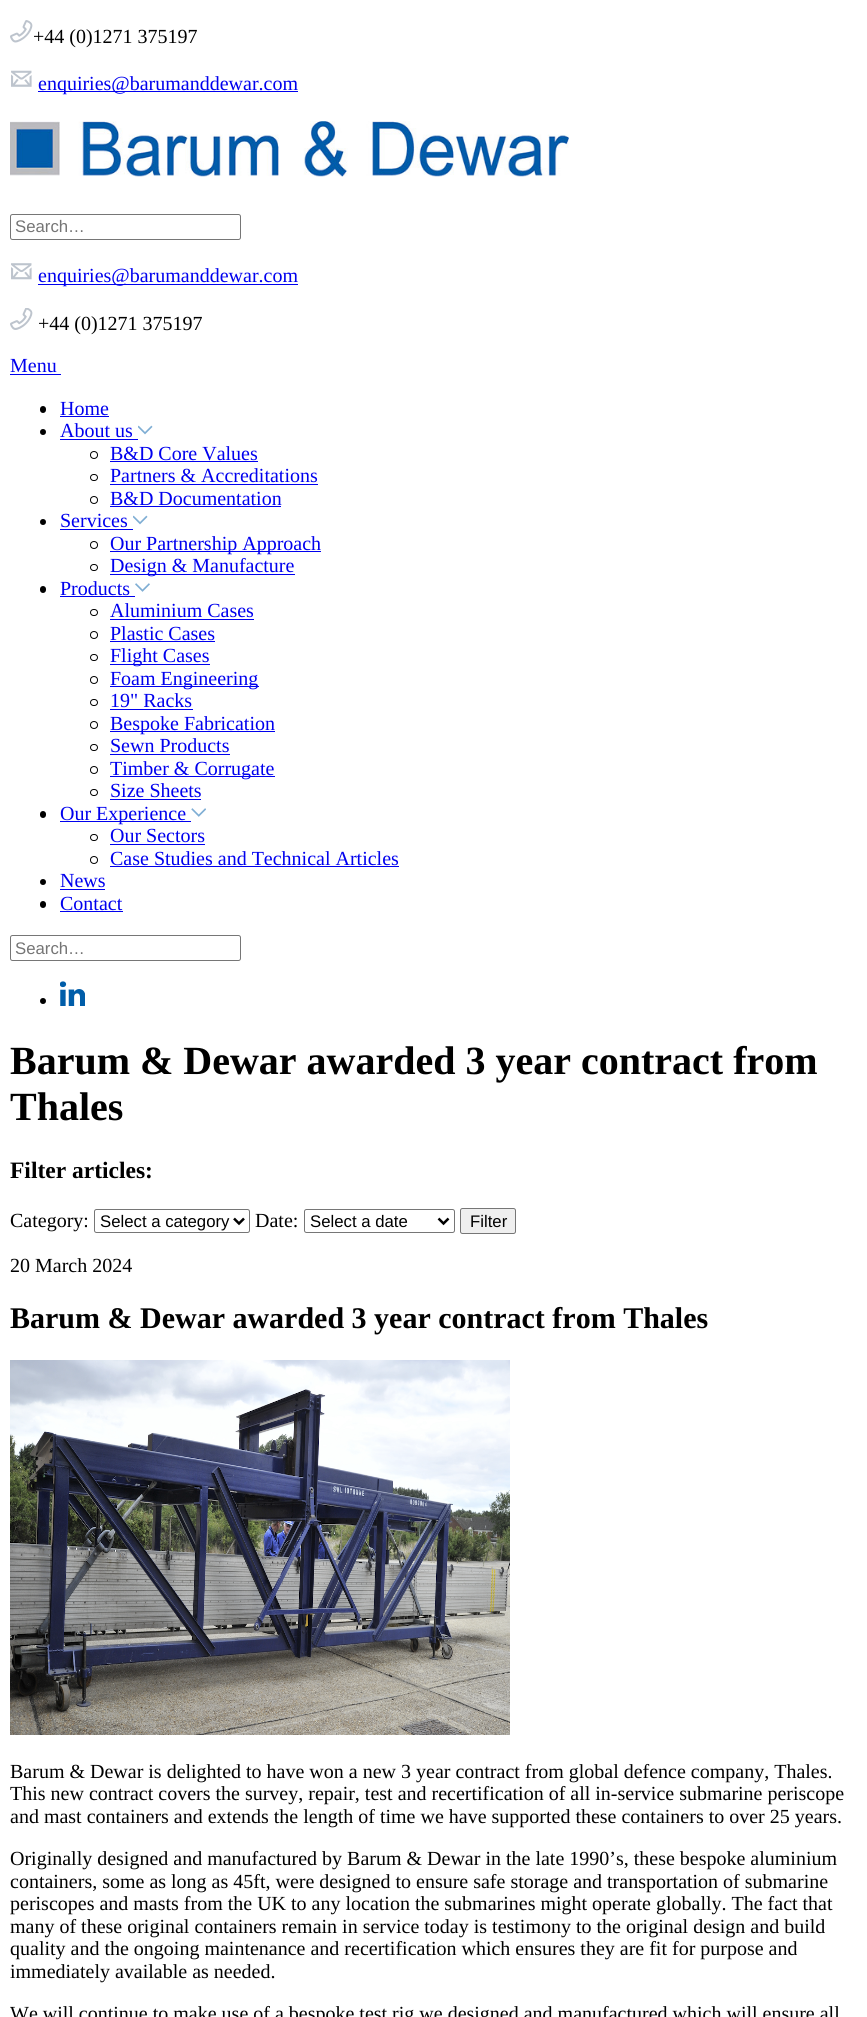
import math
import cairo

surface = cairo.ImageSurface(cairo.Format.RGB24, 867, 2017)
ctx = cairo.Context(surface)
options = cairo.FontOptions()
options.set_hint_metrics(cairo.HintMetrics.OFF)
options.set_hint_style(cairo.HintStyle.NONE)
ctx.set_font_options(options)
ctx.set_miter_limit(4)


def ink(r, g, b):
    ctx.set_source_rgb(r / 255, g / 255, b / 255)


def write(x, y, s, family, size, color, bold=False, italic=False):
    ctx.select_font_face(family, cairo.FontSlant.ITALIC if italic else cairo.FontSlant.NORMAL, cairo.FontWeight.BOLD if bold else cairo.FontWeight.NORMAL)
    ctx.set_font_size(size)
    ink(*color)
    ctx.move_to(x, y)
    ctx.show_text(s)


def block(x, y, w, h, *color):
    ink(*color)
    ctx.rectangle(x, y, w, h)
    ctx.fill()


def round_path(x, y, w, h, r):
    ctx.new_sub_path()
    for i, (u, v) in enumerate([(x + w - r, y + h - r), (x + r, y + h - r), (x + r, y + r), (x + w - r, y + r)]):
        ctx.arc(u, v, r, i * math.pi / 2, (i + 1) * math.pi / 2)
    ctx.close_path()


def paste(path, x, y, w, h):
    ctx.save()
    ctx.set_source_surface(cairo.ImageSurface.create_from_png(path), x, y)
    ctx.rectangle(x, y, w, h)
    ctx.fill()
    ctx.restore()


s1 = dict(family="Liberation Serif", size=20, color=(0, 0, 0))
s2 = dict(family="Liberation Serif", size=20, color=(0, 0, 238))
s3 = dict(family="Liberation Sans", size=16.75, color=(117, 117, 117))
s4 = dict(family="Liberation Serif", size=40, color=(0, 0, 0), bold=True)
s5 = dict(family="Liberation Serif", size=23.5, color=(0, 0, 0), bold=True)
s6 = dict(family="Liberation Sans", size=16.75, color=(0, 0, 0))
s7 = dict(family="Liberation Serif", size=30, color=(0, 0, 0), bold=True)

ink(255, 255, 255)
ctx.paint()
paste("pic1.png", 10, 20, 23, 23)
write(33, 43, "+44 (0)1271 375197", **s1)
paste("pic2.png", 11, 70, 21, 17)
block(38, 91, 260, 1, 0, 0, 238)
write(38, 90, "enquiries@barumanddewar.com", **s2)
paste("pic3.png", 10, 121, 559, 56)
round_path(10.5, 214.5, 230, 25, 2)
ink(118, 118, 118)
ctx.set_line_width(1)
ctx.stroke()
write(15, 232, "Search…", **s3)
paste("pic4.png", 11, 263, 21, 17)
block(38, 284, 260, 1, 0, 0, 238)
write(38, 282, "enquiries@barumanddewar.com", **s2)
paste("pic5.png", 10, 308, 23, 22)
write(38, 330, "+44 (0)1271 375197", **s1)
write(10, 372, "Menu", **s2)
block(10, 374, 51, 1, 0, 0, 238)
ink(0, 0, 0)
round_path(40, 406, 6, 7, 3)
ctx.fill()
write(60, 415, "Home", **s2)
block(60, 416, 49, 1, 0, 0, 238)
ink(0, 0, 0)
ctx.new_path()
ctx.arc(43, 432, 3, 0, 2 * math.pi)
ctx.fill()
write(60, 437, "About us", **s2)
block(60, 439, 78, 1, 0, 0, 238)
paste("pic6.png", 138, 425, 15, 10)
ctx.arc(94, 455, 3.5, 0, 2 * math.pi)
ink(0, 0, 0)
ctx.stroke()
write(110, 460, "B&D Core Values", **s2)
block(110, 461, 148, 1, 0, 0, 238)
round_path(90.5, 474.5, 7, 6, 3)
ink(0, 0, 0)
ctx.stroke()
write(110, 482, "Partners & Accreditations", **s2)
block(110, 484, 208, 1, 0, 0, 238)
ctx.new_path()
ctx.arc(94, 500, 3.5, 0, 2 * math.pi)
ink(0, 0, 0)
ctx.stroke()
write(110, 505, "B&D Documentation", **s2)
block(110, 506, 171, 1, 0, 0, 238)
ink(0, 0, 0)
ctx.new_path()
ctx.arc(43, 522, 3, 0, 2 * math.pi)
ctx.fill()
write(60, 527, "Services", **s2)
block(60, 529, 73, 1, 0, 0, 238)
paste("pic6.png", 133, 515, 15, 10)
ctx.arc(94, 545, 3.5, 0, 2 * math.pi)
ink(0, 0, 0)
ctx.stroke()
block(110, 551, 211, 1, 0, 0, 238)
write(110, 550, "Our Partnership Approach", **s2)
round_path(90.5, 564.5, 7, 6, 3)
ink(0, 0, 0)
ctx.stroke()
block(110, 574, 185, 1, 0, 0, 238)
write(110, 572, "Design & Manufacture", **s2)
ink(0, 0, 0)
round_path(40, 586, 6, 7, 3)
ctx.fill()
write(60, 595, "Products", **s2)
block(60, 596, 75, 1, 0, 0, 238)
paste("pic7.png", 135, 583, 15, 9)
round_path(90.5, 609.5, 7, 6, 3)
ink(0, 0, 0)
ctx.stroke()
write(110, 617, "Aluminium Cases", **s2)
block(110, 619, 144, 1, 0, 0, 238)
ctx.new_path()
ctx.arc(94, 635, 3.5, 0, 2 * math.pi)
ink(0, 0, 0)
ctx.stroke()
write(110, 640, "Plastic Cases", **s2)
block(110, 641, 105, 1, 0, 0, 238)
round_path(90.5, 654.5, 7, 6, 3)
ink(0, 0, 0)
ctx.stroke()
block(110, 664, 100, 1, 0, 0, 238)
write(110, 662, "Flight Cases", **s2)
ctx.new_path()
ctx.arc(94, 680, 3.5, 0, 2 * math.pi)
ink(0, 0, 0)
ctx.stroke()
block(110, 686, 149, 1, 0, 0, 238)
write(110, 685, "Foam Engineering", **s2)
round_path(90.5, 699.5, 7, 6, 3)
ink(0, 0, 0)
ctx.stroke()
write(110, 707, "19\" Racks", **s2)
block(110, 709, 83, 1, 0, 0, 238)
ctx.new_path()
ctx.arc(94, 725, 3.5, 0, 2 * math.pi)
ink(0, 0, 0)
ctx.stroke()
block(110, 731, 165, 1, 0, 0, 238)
write(110, 730, "Bespoke Fabrication", **s2)
round_path(90.5, 744.5, 7, 6, 3)
ink(0, 0, 0)
ctx.stroke()
write(110, 752, "Sewn Products", **s2)
block(110, 754, 120, 1, 0, 0, 238)
ctx.new_path()
ctx.arc(94, 770, 3.5, 0, 2 * math.pi)
ink(0, 0, 0)
ctx.stroke()
block(110, 776, 165, 1, 0, 0, 238)
write(110, 775, "Timber & Corrugate", **s2)
round_path(90.5, 789.5, 7, 6, 3)
ink(0, 0, 0)
ctx.stroke()
write(110, 797, "Size Sheets", **s2)
block(110, 799, 91, 1, 0, 0, 238)
ink(0, 0, 0)
round_path(40, 811, 6, 7, 3)
ctx.fill()
block(60, 821, 131, 1, 0, 0, 238)
write(60, 820, "Our Experience", **s2)
paste("pic8.png", 191, 808, 15, 9)
round_path(90.5, 834.5, 7, 6, 3)
ink(0, 0, 0)
ctx.stroke()
write(110, 842, "Our Sectors", **s2)
block(110, 844, 95, 1, 0, 0, 238)
ctx.new_path()
ctx.arc(94, 860, 3.5, 0, 2 * math.pi)
ink(0, 0, 0)
ctx.stroke()
write(110, 865, "Case Studies and Technical Articles", **s2)
block(110, 866, 289, 1, 0, 0, 238)
ink(0, 0, 0)
ctx.new_path()
ctx.arc(43, 882, 3, 0, 2 * math.pi)
ctx.fill()
write(60, 887, "News", **s2)
block(60, 889, 45, 1, 0, 0, 238)
ink(0, 0, 0)
round_path(40, 901, 6, 7, 3)
ctx.fill()
write(60, 910, "Contact", **s2)
block(60, 911, 63, 1, 0, 0, 238)
round_path(10.5, 935.5, 230, 25, 2)
ink(118, 118, 118)
ctx.stroke()
write(15, 954, "Search…", **s3)
ink(0, 0, 0)
ctx.new_path()
ctx.arc(43, 1001, 3, 0, 2 * math.pi)
ctx.fill()
paste("pic9.png", 60, 981, 25, 25)
write(10, 1074, "Barum & Dewar awarded 3 year contract from", **s4)
write(10, 1120, "Thales", **s4)
write(10, 1178, "Filter articles:", **s5)
write(10, 1227, "Category:", **s1)
round_path(94.5, 1209.5, 155, 23, 2)
ink(118, 118, 118)
ctx.stroke()
ctx.new_path()
ctx.move_to(234, 1218.5)
ctx.line_to(239, 1223.5)
ctx.line_to(244, 1218.5)
ink(0, 0, 0)
ctx.set_line_width(2.5)
ctx.stroke()
write(100, 1227, "Select a category", **s6)
write(255, 1227, "Date:", **s1)
round_path(304.5, 1209.5, 150, 23, 2)
ink(118, 118, 118)
ctx.set_line_width(1)
ctx.stroke()
ctx.new_path()
ctx.move_to(438.5, 1218.5)
ctx.line_to(443.5, 1223.5)
ctx.line_to(448.5, 1218.5)
ink(0, 0, 0)
ctx.set_line_width(2.5)
ctx.stroke()
write(310, 1227, "Select a date", **s6)
ink(239, 239, 239)
round_path(460.5, 1208.5, 55, 25, 2)
ctx.fill_preserve()
ink(118, 118, 118)
ctx.set_line_width(1)
ctx.stroke()
write(470, 1227, "Filter", **s6)
write(10, 1272, "20 March 2024", **s1)
write(10, 1328, "Barum & Dewar awarded 3 year contract from Thales", **s7)
paste("pic10.png", 10, 1360, 500, 375)
write(10, 1778, "Barum & Dewar is delighted to have won a new 3 year contract from global defence company, Thales.", **s1)
write(10, 1800, "This new contract covers the survey, repair, test and recertification of all in-service submarine periscope", **s1)
write(10, 1823, "and mast containers and extends the length of time we have supported these containers to over 25 years.", **s1)
write(10, 1865, "Originally designed and manufactured by Barum & Dewar in the late 1990’s, these bespoke aluminium", **s1)
write(10, 1888, "containers, some as long as 45ft, were designed to ensure safe storage and transportation of submarine", **s1)
write(10, 1910, "periscopes and masts from the UK to any location the submarines might operate globally. The fact that", **s1)
write(10, 1933, "many of these original containers remain in service today is testimony to the original design and build", **s1)
write(10, 1955, "quality and the ongoing maintenance and recertification which ensures they are fit for purpose and", **s1)
write(10, 1978, "immediately available as needed.", **s1)
write(10, 2020, "We will continue to make use of a bespoke test rig we designed and manufactured which will ensure all", **s1)
surface.write_to_png("screenshot.png")
